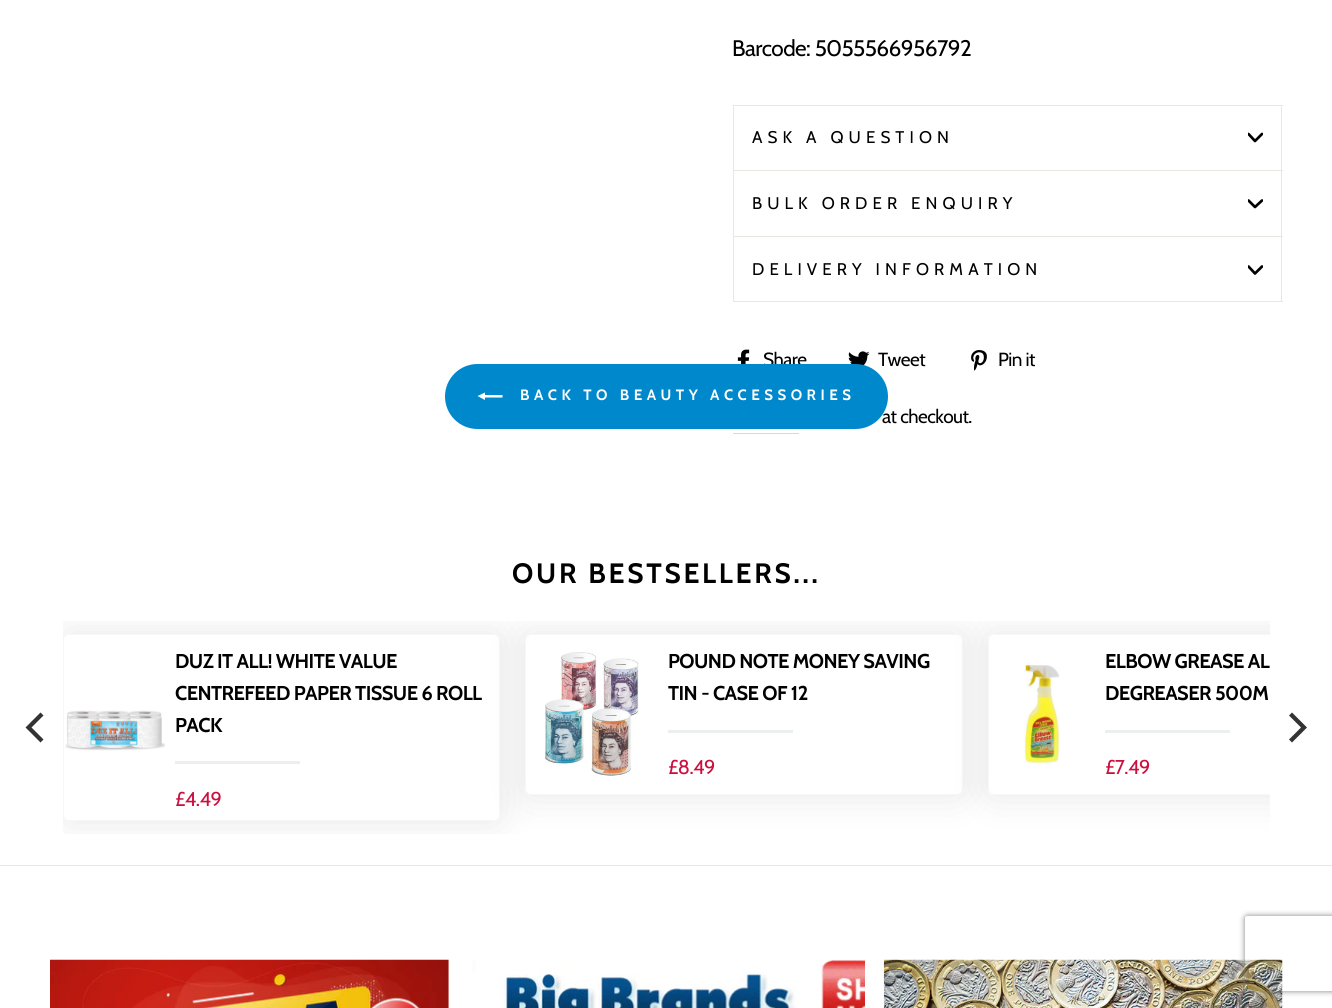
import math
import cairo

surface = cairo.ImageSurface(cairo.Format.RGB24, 1332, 1008)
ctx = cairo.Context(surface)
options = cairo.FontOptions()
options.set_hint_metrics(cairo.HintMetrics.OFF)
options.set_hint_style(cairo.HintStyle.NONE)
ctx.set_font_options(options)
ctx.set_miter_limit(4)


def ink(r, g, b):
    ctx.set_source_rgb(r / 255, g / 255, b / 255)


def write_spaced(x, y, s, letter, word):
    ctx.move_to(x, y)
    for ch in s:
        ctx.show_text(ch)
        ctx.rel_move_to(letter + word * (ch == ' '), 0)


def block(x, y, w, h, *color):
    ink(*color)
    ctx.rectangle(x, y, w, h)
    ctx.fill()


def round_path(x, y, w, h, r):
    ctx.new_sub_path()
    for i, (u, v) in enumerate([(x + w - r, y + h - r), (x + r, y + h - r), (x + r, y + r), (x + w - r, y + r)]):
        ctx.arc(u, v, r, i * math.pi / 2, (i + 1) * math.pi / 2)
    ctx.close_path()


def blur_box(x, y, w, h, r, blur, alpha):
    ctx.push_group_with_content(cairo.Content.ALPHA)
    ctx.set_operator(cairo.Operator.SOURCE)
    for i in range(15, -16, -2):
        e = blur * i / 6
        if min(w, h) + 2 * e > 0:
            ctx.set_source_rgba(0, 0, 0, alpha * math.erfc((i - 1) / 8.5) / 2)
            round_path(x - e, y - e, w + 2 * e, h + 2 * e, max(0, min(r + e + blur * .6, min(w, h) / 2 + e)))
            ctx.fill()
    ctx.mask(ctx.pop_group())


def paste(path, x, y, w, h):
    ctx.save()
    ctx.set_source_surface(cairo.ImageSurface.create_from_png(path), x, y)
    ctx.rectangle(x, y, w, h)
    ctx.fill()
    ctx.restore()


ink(255, 255, 255)
ctx.paint()
ctx.select_font_face("Cabin")
ctx.set_font_size(19)
ink(0, 0, 0)
write_spaced(763, 366, "Share", -0.55, 0)
paste("pic2.png", 848, 351, 22, 15)
write_spaced(878, 366, "Tweet", -0.55, 0)
write_spaced(882, 423, "at checkout.", -0.55, 0)
ink(0, 136, 204)
round_path(445, 364, 443, 65, 32.5)
ctx.fill()
ink(255, 255, 255)
ctx.new_path()
ctx.move_to(502.5, 395)
ctx.line_to(502.5, 397.5)
ctx.line_to(485, 397.5)
ctx.line_to(485, 400)
ctx.line_to(477.5, 396)
ctx.line_to(485, 392.5)
ctx.line_to(485, 395)
ctx.close_path()
ctx.fill()
ctx.select_font_face("Cabin", cairo.FontSlant.NORMAL, cairo.FontWeight.BOLD)
ctx.set_font_size(15)
write_spaced(520, 400, "BACK TO BEAUTY ACCESSORIES", 4.5, 0)
ctx.select_font_face("Cabin")
ctx.set_font_size(22.5)
ink(0, 0, 0)
write_spaced(732, 56, "Barcode: 5055566956792", -0.55, 0)
block(733, 301, 550, 1, 232, 232, 225)
block(733, 105, 550, 1, 232, 232, 225)
block(1281, 105, 1, 65, 232, 232, 225)
block(733, 105, 1, 65, 232, 232, 225)
ctx.set_font_size(16.9)
ink(0, 0, 0)
write_spaced(752, 143, "ASK A QUESTION", 5.1, 0)
ctx.save()
ctx.rectangle(1248, 130, 15, 15)
ctx.clip()
ctx.new_path()
ctx.move_to(1248.5, 134)
ctx.line_to(1255, 141)
ctx.line_to(1262, 134)
ctx.set_line_width(2.7)
ctx.set_line_cap(cairo.LineCap.ROUND)
ctx.set_line_join(cairo.LineJoin.ROUND)
ctx.stroke()
ctx.restore()
block(733, 170, 550, 1, 232, 232, 225)
block(1281, 170, 1, 66, 232, 232, 225)
block(733, 170, 1, 66, 232, 232, 225)
ink(0, 0, 0)
write_spaced(752, 209, "BULK ORDER ENQUIRY", 5.1, 0)
ctx.save()
ctx.rectangle(1248, 196, 15, 15)
ctx.clip()
ctx.new_path()
ctx.move_to(1248.5, 200.5)
ctx.line_to(1255, 207)
ctx.line_to(1262, 200.5)
ctx.set_line_width(2.7)
ctx.set_line_cap(cairo.LineCap.ROUND)
ctx.set_line_join(cairo.LineJoin.ROUND)
ctx.stroke()
ctx.restore()
block(733, 236, 550, 1, 232, 232, 225)
block(1281, 236, 1, 65, 232, 232, 225)
block(733, 236, 1, 65, 232, 232, 225)
ink(0, 0, 0)
write_spaced(752, 275, "DELIVERY INFORMATION", 5.1, 0)
ctx.save()
ctx.rectangle(1248, 263, 15, 15)
ctx.clip()
ctx.new_path()
ctx.move_to(1248.5, 266.5)
ctx.line_to(1255, 273.5)
ctx.line_to(1262, 266.5)
ctx.set_line_width(2.7)
ctx.set_line_cap(cairo.LineCap.ROUND)
ctx.set_line_join(cairo.LineJoin.ROUND)
ctx.stroke()
ctx.restore()
paste("pic1.png", 737, 349, 13, 15)
paste("pic3.png", 971, 350, 16, 21)
ctx.set_font_size(19)
write_spaced(998, 366, "Pin it", -0.55, 0)
block(733, 433, 66, 1, 217, 217, 217)
ctx.select_font_face("Cabin", cairo.FontSlant.NORMAL, cairo.FontWeight.BOLD)
ctx.set_font_size(28)
ink(0, 0, 0)
write_spaced(512, 583, "OUR BESTSELLERS...", 2.75, 0)
block(0, 865, 1332, 1, 232, 232, 225)
ctx.save()
ctx.rectangle(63, 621, 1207, 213)
ctx.clip()
ink(0, 0, 0)
blur_box(63, 634, 437, 187, 6, 19, 0.1)
ctx.restore()
ink(51, 51, 51)
ctx.new_path()
ctx.move_to(25.5, 727.5)
ctx.line_to(40.5, 742.5)
ctx.line_to(43.5, 739.5)
ctx.line_to(31.5, 727.5)
ctx.line_to(43.5, 715.5)
ctx.line_to(40.5, 712.5)
ctx.close_path()
ctx.fill()
ink(255, 255, 255)
round_path(63.5, 634.5, 436, 186, 5.5)
ctx.fill_preserve()
ink(247, 247, 247)
ctx.set_line_width(1)
ctx.stroke()
paste("pic4.png", 65, 710, 100, 41)
ctx.set_font_size(20)
ink(0, 0, 0)
write_spaced(175, 668, "DUZ IT ALL! WHITE VALUE", -0.55, 0)
write_spaced(175, 700, "CENTREFEED PAPER TISSUE 6 ROLL", -0.55, 0)
write_spaced(175, 732, "PACK", -0.55, 0)
block(175, 761, 125, 3, 235, 239, 240)
ctx.select_font_face("Cabin")
ink(203, 16, 63)
write_spaced(175, 806, "£4.49", -0.55, 0)
ctx.save()
ctx.rectangle(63, 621, 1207, 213)
ctx.clip()
ink(0, 0, 0)
blur_box(525, 634, 438, 161, 6, 19, 0.1)
ctx.restore()
ink(255, 255, 255)
round_path(525.5, 634.5, 437, 160, 5.5)
ctx.fill_preserve()
ink(247, 247, 247)
ctx.stroke()
paste("pic5.png", 545, 652, 94, 124)
ctx.select_font_face("Cabin", cairo.FontSlant.NORMAL, cairo.FontWeight.BOLD)
ink(0, 0, 0)
write_spaced(668, 668, "POUND NOTE MONEY SAVING", -0.55, 0)
write_spaced(668, 700, "TIN - CASE OF 12", -0.55, 0)
block(668, 730, 125, 3, 235, 239, 240)
ctx.select_font_face("Cabin")
ink(203, 16, 63)
write_spaced(668, 774, "£8.49", -0.55, 0)
ctx.save()
ctx.rectangle(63, 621, 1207, 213)
ctx.clip()
ink(0, 0, 0)
blur_box(988, 634, 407, 161, 6, 19, 0.1)
ctx.restore()
ink(255, 255, 255)
ctx.new_path()
ctx.move_to(994, 634)
ctx.line_to(1270, 634)
ctx.line_to(1270, 795)
ctx.line_to(994, 795)
ctx.curve_to(990.5, 795, 988, 792.5, 988, 789)
ctx.line_to(988, 640)
ctx.curve_to(988, 636.5, 990.5, 634, 994, 634)
ctx.close_path()
ctx.fill()
ctx.save()
ctx.rectangle(63, 621, 1207, 213)
ctx.clip()
round_path(988.5, 634.5, 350, 160, 5.5)
ink(247, 247, 247)
ctx.stroke()
ctx.restore()
paste("pic6.png", 1024, 663, 36, 101)
ctx.select_font_face("Cabin", cairo.FontSlant.NORMAL, cairo.FontWeight.BOLD)
ink(0, 0, 0)
write_spaced(1105, 668, "ELBOW GREASE AL", -0.55, 0)
write_spaced(1105, 700, "DEGREASER 500M", -0.55, 0)
block(1105, 730, 125, 3, 235, 239, 240)
ctx.select_font_face("Cabin")
ink(203, 16, 63)
write_spaced(1105, 774, "£7.49", -0.55, 0)
ink(51, 51, 51)
ctx.new_path()
ctx.move_to(1307, 727.5)
ctx.line_to(1292, 712.5)
ctx.line_to(1289, 715.5)
ctx.line_to(1301, 727.5)
ctx.line_to(1289, 739.5)
ctx.line_to(1292, 742.5)
ctx.close_path()
ctx.fill()
paste("pic7.png", 50, 959, 399, 49)
paste("pic8.png", 472, 960, 393, 48)
paste("pic9.png", 883, 959, 400, 49)
ctx.save()
ctx.set_fill_rule(cairo.FillRule.EVEN_ODD)
ctx.new_path()
ctx.move_to(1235, 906)
ctx.line_to(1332, 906)
ctx.line_to(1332, 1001)
ctx.line_to(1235, 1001)
ctx.close_path()
ctx.move_to(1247.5, 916)
ctx.line_to(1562.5, 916)
ctx.curve_to(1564, 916, 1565, 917, 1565, 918.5)
ctx.line_to(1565, 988.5)
ctx.curve_to(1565, 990, 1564, 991, 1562.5, 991)
ctx.line_to(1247.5, 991)
ctx.curve_to(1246, 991, 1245, 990, 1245, 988.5)
ctx.line_to(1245, 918.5)
ctx.curve_to(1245, 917, 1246, 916, 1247.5, 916)
ctx.close_path()
ctx.clip()
ink(128, 128, 128)
blur_box(1245, 916, 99, 75, 2.5, 3, 1)
ctx.restore()
surface.write_to_png("screenshot.png")
